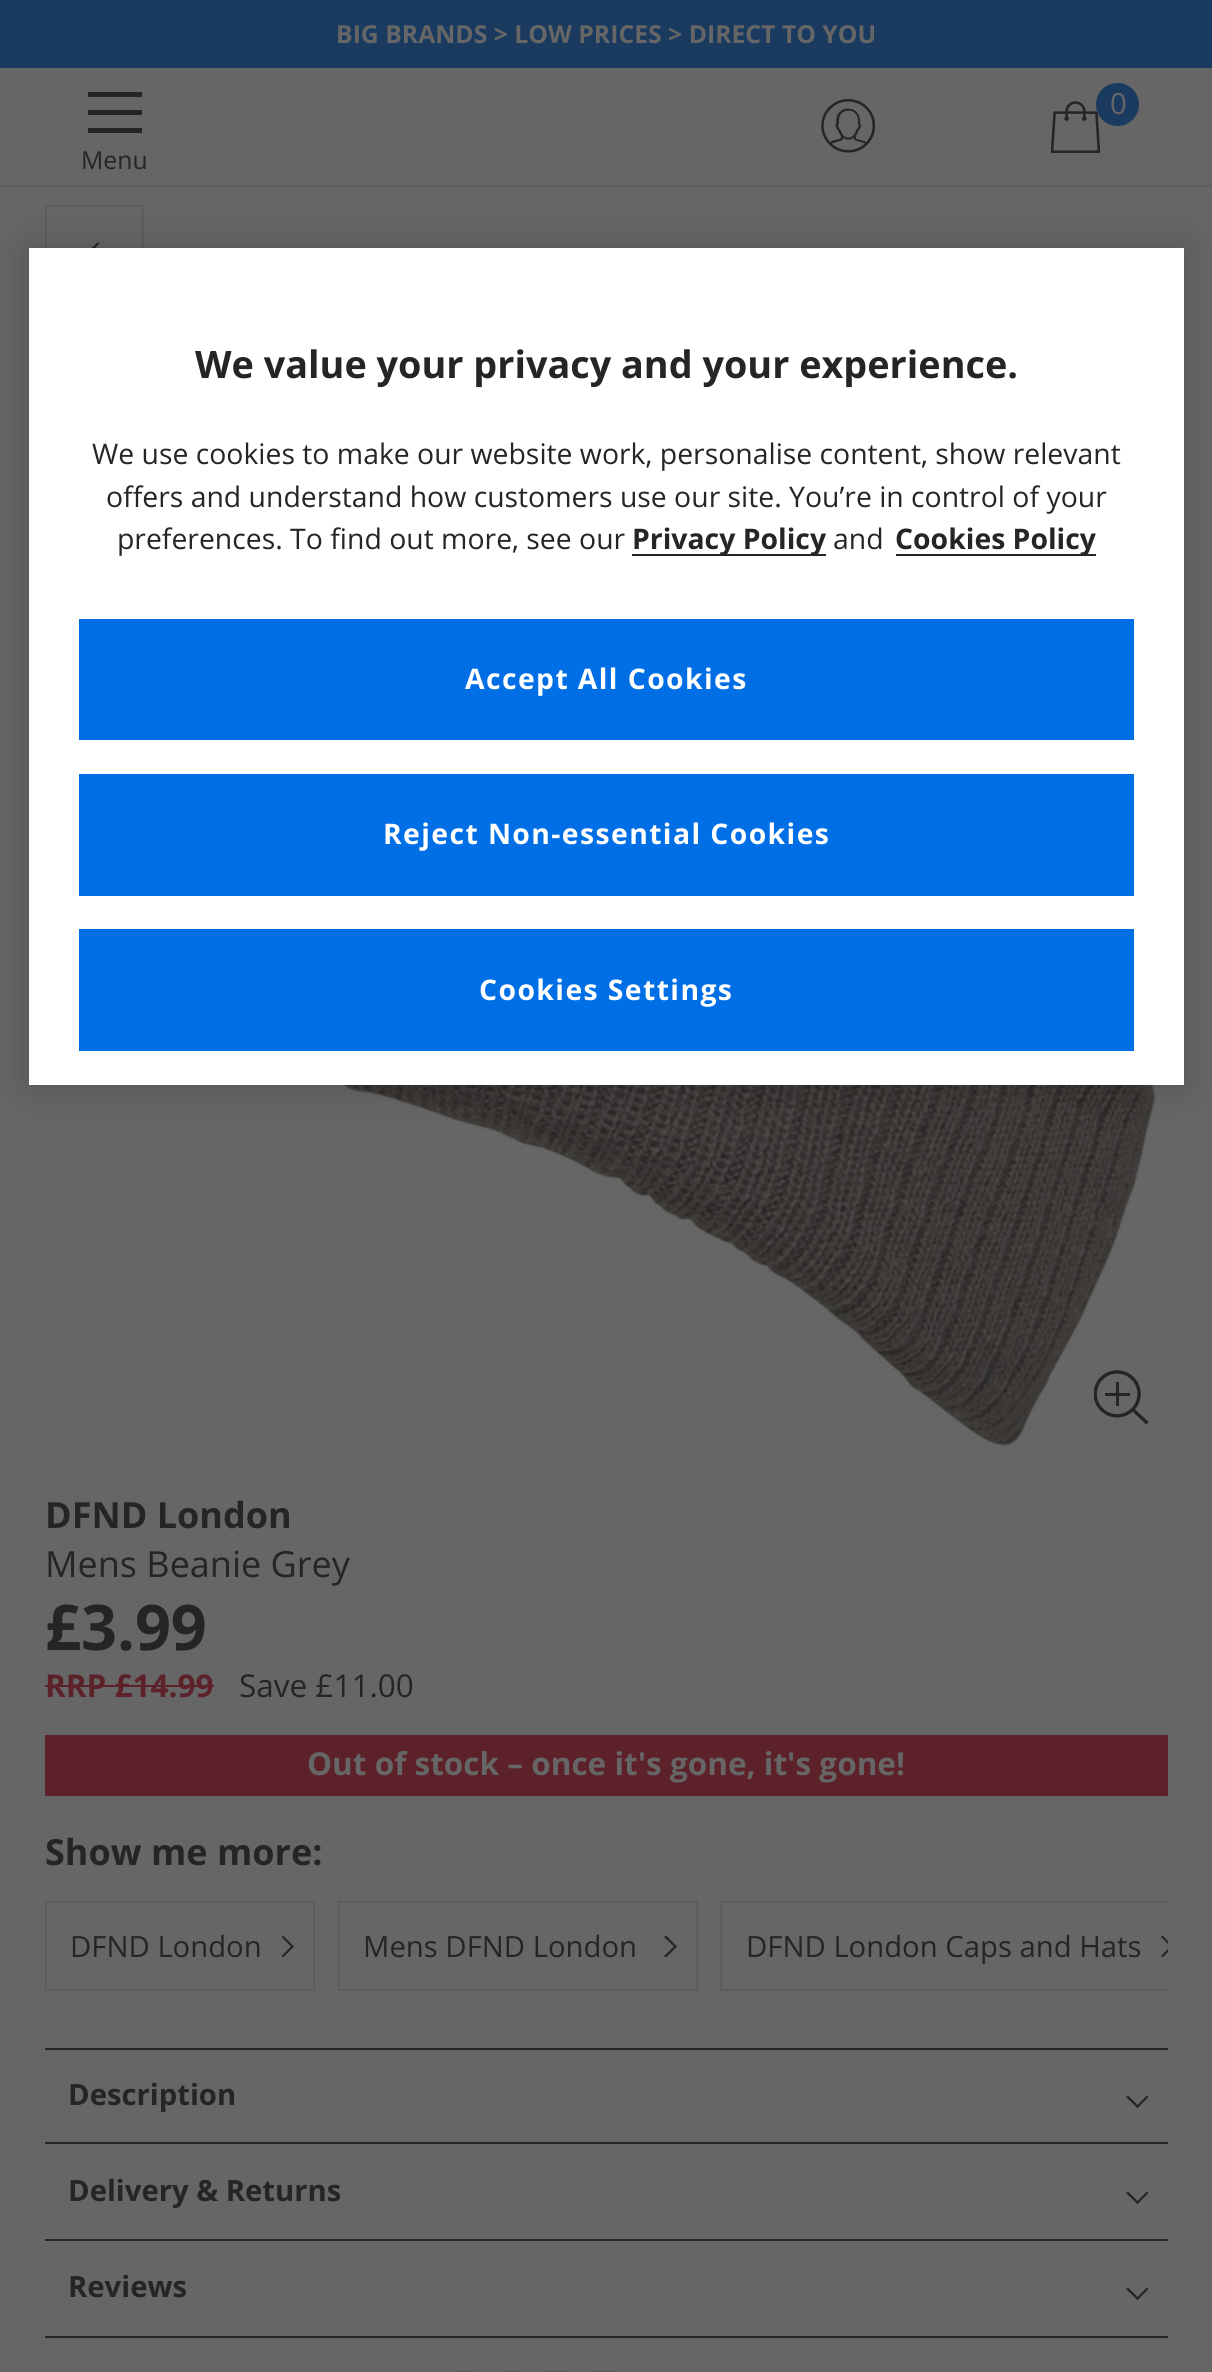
import math
import cairo

surface = cairo.ImageSurface(cairo.Format.RGB24, 1212, 2372)
ctx = cairo.Context(surface)
options = cairo.FontOptions()
options.set_hint_metrics(cairo.HintMetrics.OFF)
options.set_hint_style(cairo.HintStyle.NONE)
ctx.set_font_options(options)
ctx.set_miter_limit(4)


def ink(r, g, b):
    ctx.set_source_rgb(r / 255, g / 255, b / 255)


def write(x, y, s, family, size, color, bold=False, italic=False):
    ctx.select_font_face(family, cairo.FontSlant.ITALIC if italic else cairo.FontSlant.NORMAL, cairo.FontWeight.BOLD if bold else cairo.FontWeight.NORMAL)
    ctx.set_font_size(size)
    ink(*color)
    ctx.move_to(x, y)
    ctx.show_text(s)


def write_spaced(x, y, s, letter, word):
    ctx.move_to(x, y)
    for ch in s:
        ctx.show_text(ch)
        ctx.rel_move_to(letter + word * (ch == ' '), 0)


def block(x, y, w, h, *color):
    ink(*color)
    ctx.rectangle(x, y, w, h)
    ctx.fill()


def round_path(x, y, w, h, r):
    ctx.new_sub_path()
    for i, (u, v) in enumerate([(x + w - r, y + h - r), (x + r, y + h - r), (x + r, y + r), (x + w - r, y + r)]):
        ctx.arc(u, v, r, i * math.pi / 2, (i + 1) * math.pi / 2)
    ctx.close_path()


def blur_box(x, y, w, h, r, blur, alpha):
    ctx.push_group_with_content(cairo.Content.ALPHA)
    ctx.set_operator(cairo.Operator.SOURCE)
    for i in range(15, -16, -2):
        e = blur * i / 6
        if min(w, h) + 2 * e > 0:
            ctx.set_source_rgba(0, 0, 0, alpha * math.erfc((i - 1) / 8.5) / 2)
            round_path(x - e, y - e, w + 2 * e, h + 2 * e, max(0, min(r + e + blur * .6, min(w, h) / 2 + e)))
            ctx.fill()
    ctx.mask(ctx.pop_group())


def paste(path, x, y, w, h):
    ctx.save()
    ctx.set_source_surface(cairo.ImageSurface.create_from_png(path), x, y)
    ctx.rectangle(x, y, w, h)
    ctx.fill()
    ctx.restore()


s1 = dict(family="Open Sans", size=24.75, color=(102, 102, 102), bold=True)
s2 = dict(family="Open Sans", size=29.25, color=(102, 102, 102))
s3 = dict(family="Open Sans", size=24.75, color=(37, 37, 37))
s4 = dict(family="Open Sans", size=37.8, color=(37, 37, 37), bold=True)
s5 = dict(family="Open Sans", size=28.35, color=(37, 37, 37))
s6 = dict(family="Open Sans", size=28.35, color=(37, 37, 37), bold=True)
s7 = dict(family="Open Sans", size=36, color=(37, 37, 37), bold=True)
s8 = dict(family="Open Sans", size=36, color=(37, 37, 37))
s9 = dict(family="Open Sans", size=63, color=(37, 37, 37), bold=True)
s10 = dict(family="Open Sans", size=31.5, color=(93, 33, 42), bold=True)
s11 = dict(family="Open Sans", size=31.5, color=(37, 37, 37))
s12 = dict(family="Open Sans", size=31.5, color=(102, 102, 102), bold=True)
s13 = dict(family="Open Sans", size=29.25, color=(37, 37, 37))
s14 = dict(family="Open Sans", size=29.25, color=(37, 37, 37), bold=True)

ink(102, 102, 102)
ctx.paint()
block(0, 0, 1212, 68, 26, 59, 95)
write(336, 43, "BIG BRANDS > LOW PRICES > DIRECT TO YOU", **s1)
block(0, 185, 1212, 2, 93, 93, 93)
paste("pic1.png", 821, 99, 54, 54)
paste("pic2.png", 1051, 101, 49, 52)
ink(26, 59, 95)
ctx.arc(1117.5, 104.5, 21.5, 0, 2 * math.pi)
ctx.fill()
write(1110, 114, "0", **s2)
block(88, 92, 54, 5, 37, 37, 37)
block(88, 110, 54, 5, 37, 37, 37)
block(88, 128, 54, 5, 37, 37, 37)
write(81, 169, "Menu", **s3)
ctx.rectangle(46, 206, 97, 92)
ink(93, 93, 93)
ctx.stroke()
ink(37, 37, 37)
ctx.new_path()
ctx.move_to(99.5, 243.5)
ctx.line_to(88.5, 254.5)
ctx.line_to(86.5, 253)
ctx.line_to(98, 242)
ctx.close_path()
ctx.fill()
paste("pic3.png", 56, 1085, 1101, 362)
ink(0, 0, 0)
blur_box(29, 248, 1155, 837, 0, 20, 0.2)
block(29, 248, 1155, 837, 255, 255, 255)
write(195, 378, "We value your privacy and your experience.", **s4)
write(92, 464, "We use cookies to make our website work, personalise content, show relevant", **s5)
write(106, 507, "offers and understand how customers use our site. You’re in control of your", **s5)
write(117, 549, "preferences. To find out more, see our", **s5)
block(632, 554, 194, 2, 37, 37, 37)
write(632, 549, "Privacy Policy", **s6)
write(833, 549, "and", **s5)
block(896, 554, 200, 2, 37, 37, 37)
write(895, 549, "Cookies Policy", **s6)
block(79, 619, 1055, 121, 0, 111, 230)
ink(255, 255, 255)
write_spaced(465, 689, "Accept All Cookies", 1.4, 0)
block(79, 774, 1055, 122, 0, 111, 230)
ink(255, 255, 255)
write_spaced(383, 844, "Reject Non-essential Cookies", 1.4, 0)
block(79, 929, 1055, 122, 0, 111, 230)
ink(255, 255, 255)
write_spaced(479, 1000, "Cookies Settings", 1.4, 0)
paste("pic4.png", 1094, 1370, 55, 55)
write(45, 1528, "DFND London", **s7)
write(45, 1577, "Mens Beanie Grey", **s8)
write(45, 1650, "£3.99", **s9)
write(45, 1697, "RRP £14.99", **s10)
block(45, 1685, 169, 2, 93, 33, 42)
write(239, 1697, "Save £11.00", **s11)
block(45, 1735, 1123, 61, 93, 33, 42)
write(307, 1775, "Out of stock – once it's gone, it's gone!", **s12)
write(45, 1865, "Show me more:", **s7)
ctx.rectangle(46, 1902, 268, 88)
ink(93, 93, 93)
ctx.stroke()
write(70, 1957, "DFND London", **s13)
ctx.new_path()
ctx.move_to(281.5, 1937)
ctx.line_to(283, 1935.5)
ctx.line_to(294, 1946.5)
ctx.line_to(292.5, 1948)
ctx.close_path()
ctx.fill()
ctx.new_path()
ctx.move_to(281.5, 1956)
ctx.line_to(292.5, 1945)
ctx.line_to(294, 1946.5)
ctx.line_to(283, 1957.5)
ctx.close_path()
ctx.fill()
ctx.rectangle(339, 1902, 358, 88)
ink(93, 93, 93)
ctx.stroke()
write(363, 1957, "Mens DFND London", **s13)
ctx.new_path()
ctx.move_to(664, 1937)
ctx.line_to(666, 1935.5)
ctx.line_to(677, 1946.5)
ctx.line_to(675.5, 1948)
ctx.close_path()
ctx.fill()
ctx.new_path()
ctx.move_to(664, 1956)
ctx.line_to(675.5, 1945)
ctx.line_to(677, 1946.5)
ctx.line_to(666, 1957.5)
ctx.close_path()
ctx.fill()
ctx.save()
ctx.rectangle(45, 1879, 1123, 135)
ctx.clip()
ctx.rectangle(721, 1902, 473, 88)
ink(93, 93, 93)
ctx.stroke()
ctx.restore()
write(746, 1957, "DFND London Caps and Hats", **s13)
ctx.save()
ctx.rectangle(45, 1879, 1123, 135)
ctx.clip()
ctx.new_path()
ctx.move_to(1161, 1937)
ctx.line_to(1162.5, 1935.5)
ctx.line_to(1173.5, 1946.5)
ctx.line_to(1172, 1948)
ctx.close_path()
ctx.move_to(1161, 1956)
ctx.line_to(1172, 1945)
ctx.line_to(1173.5, 1946.5)
ctx.line_to(1162.5, 1957.5)
ctx.close_path()
ctx.fill()
ctx.restore()
block(45, 2048, 1123, 2, 37, 37, 37)
block(45, 2142, 1123, 2, 37, 37, 37)
write(68, 2105, "Description", **s14)
ctx.new_path()
ctx.move_to(1147, 2095.5)
ctx.line_to(1148.5, 2097)
ctx.line_to(1137.5, 2108)
ctx.line_to(1136, 2106.5)
ctx.close_path()
ctx.fill()
ctx.new_path()
ctx.move_to(1128, 2095.5)
ctx.line_to(1139, 2106.5)
ctx.line_to(1137.5, 2108)
ctx.line_to(1126, 2097)
ctx.close_path()
ctx.fill()
block(45, 2239, 1123, 2, 37, 37, 37)
write(68, 2201, "Delivery & Returns", **s14)
ctx.new_path()
ctx.move_to(1147, 2191.5)
ctx.line_to(1148.5, 2193)
ctx.line_to(1137.5, 2204)
ctx.line_to(1136, 2202.5)
ctx.close_path()
ctx.fill()
ctx.new_path()
ctx.move_to(1128, 2191.5)
ctx.line_to(1139, 2202.5)
ctx.line_to(1137.5, 2204)
ctx.line_to(1126, 2193)
ctx.close_path()
ctx.fill()
block(45, 2336, 1123, 2, 37, 37, 37)
write(68, 2297, "Reviews", **s14)
ctx.new_path()
ctx.move_to(1147, 2287.5)
ctx.line_to(1148.5, 2289)
ctx.line_to(1137.5, 2300)
ctx.line_to(1136, 2298.5)
ctx.close_path()
ctx.fill()
ctx.new_path()
ctx.move_to(1128, 2287.5)
ctx.line_to(1139, 2298.5)
ctx.line_to(1137.5, 2300)
ctx.line_to(1126, 2289)
ctx.close_path()
ctx.fill()
paste("pic5.png", 407, 2371, 225, 1)
surface.write_to_png("screenshot.png")
